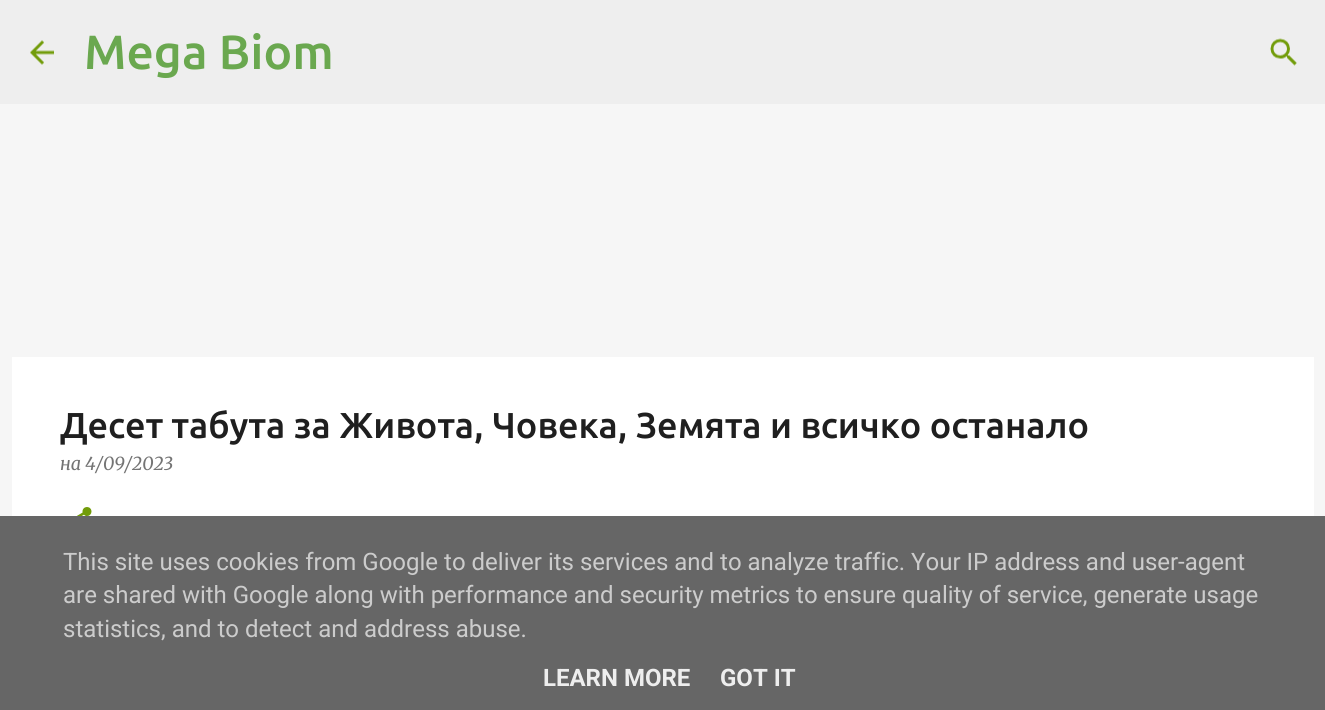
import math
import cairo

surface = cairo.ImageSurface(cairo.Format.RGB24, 1325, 710)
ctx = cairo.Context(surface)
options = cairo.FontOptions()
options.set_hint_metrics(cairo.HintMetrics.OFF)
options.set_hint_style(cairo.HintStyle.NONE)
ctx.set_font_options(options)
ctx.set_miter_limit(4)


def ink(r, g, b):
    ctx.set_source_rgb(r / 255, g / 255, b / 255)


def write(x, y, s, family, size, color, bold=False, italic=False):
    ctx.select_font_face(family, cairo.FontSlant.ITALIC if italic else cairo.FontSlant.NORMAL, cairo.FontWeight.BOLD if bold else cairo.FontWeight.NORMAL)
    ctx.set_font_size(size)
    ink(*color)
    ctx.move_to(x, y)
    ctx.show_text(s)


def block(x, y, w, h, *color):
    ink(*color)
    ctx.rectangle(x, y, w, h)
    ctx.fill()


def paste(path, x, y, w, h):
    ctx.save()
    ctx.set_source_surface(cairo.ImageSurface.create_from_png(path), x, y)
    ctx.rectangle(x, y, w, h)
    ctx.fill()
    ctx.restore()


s1 = dict(family="Ubuntu Medium", size=48, color=(106, 168, 79))
s2 = dict(family="Ubuntu Medium", size=36, color=(31, 31, 31))
s3 = dict(family="Merriweather Light", size=18, color=(116, 116, 116), italic=True)
s4 = dict(family="Roboto", size=24, color=(204, 204, 204))
s5 = dict(family="Roboto", size=24, color=(238, 238, 238), bold=True)

ink(246, 246, 246)
ctx.paint()
block(0, 0, 1325, 104, 238, 238, 238)
paste("pic1.png", 30, 40, 24, 25)
write(84, 69, "Mega Biom", **s1)
paste("pic2.png", 1270, 38, 27, 28)
block(12, 357, 1302, 159, 255, 255, 255)
write(60, 438, "Десет табута за Живота, Човека, Земята и всичко останало", **s2)
write(60, 470, "на 4/09/2023", **s3)
paste("pic3.png", 77, 507, 15, 9)
block(0, 516, 1325, 194, 102, 102, 102)
write(63, 570, "This site uses cookies from Google to deliver its services and to analyze traffic. Your IP address and user-agent", **s4)
write(63, 603, "are shared with Google along with performance and security metrics to ensure quality of service, generate usage", **s4)
write(63, 637, "statistics, and to detect and address abuse.", **s4)
write(543, 686, "LEARN MORE", **s5)
write(720, 686, "GOT IT", **s5)
surface.write_to_png("screenshot.png")
